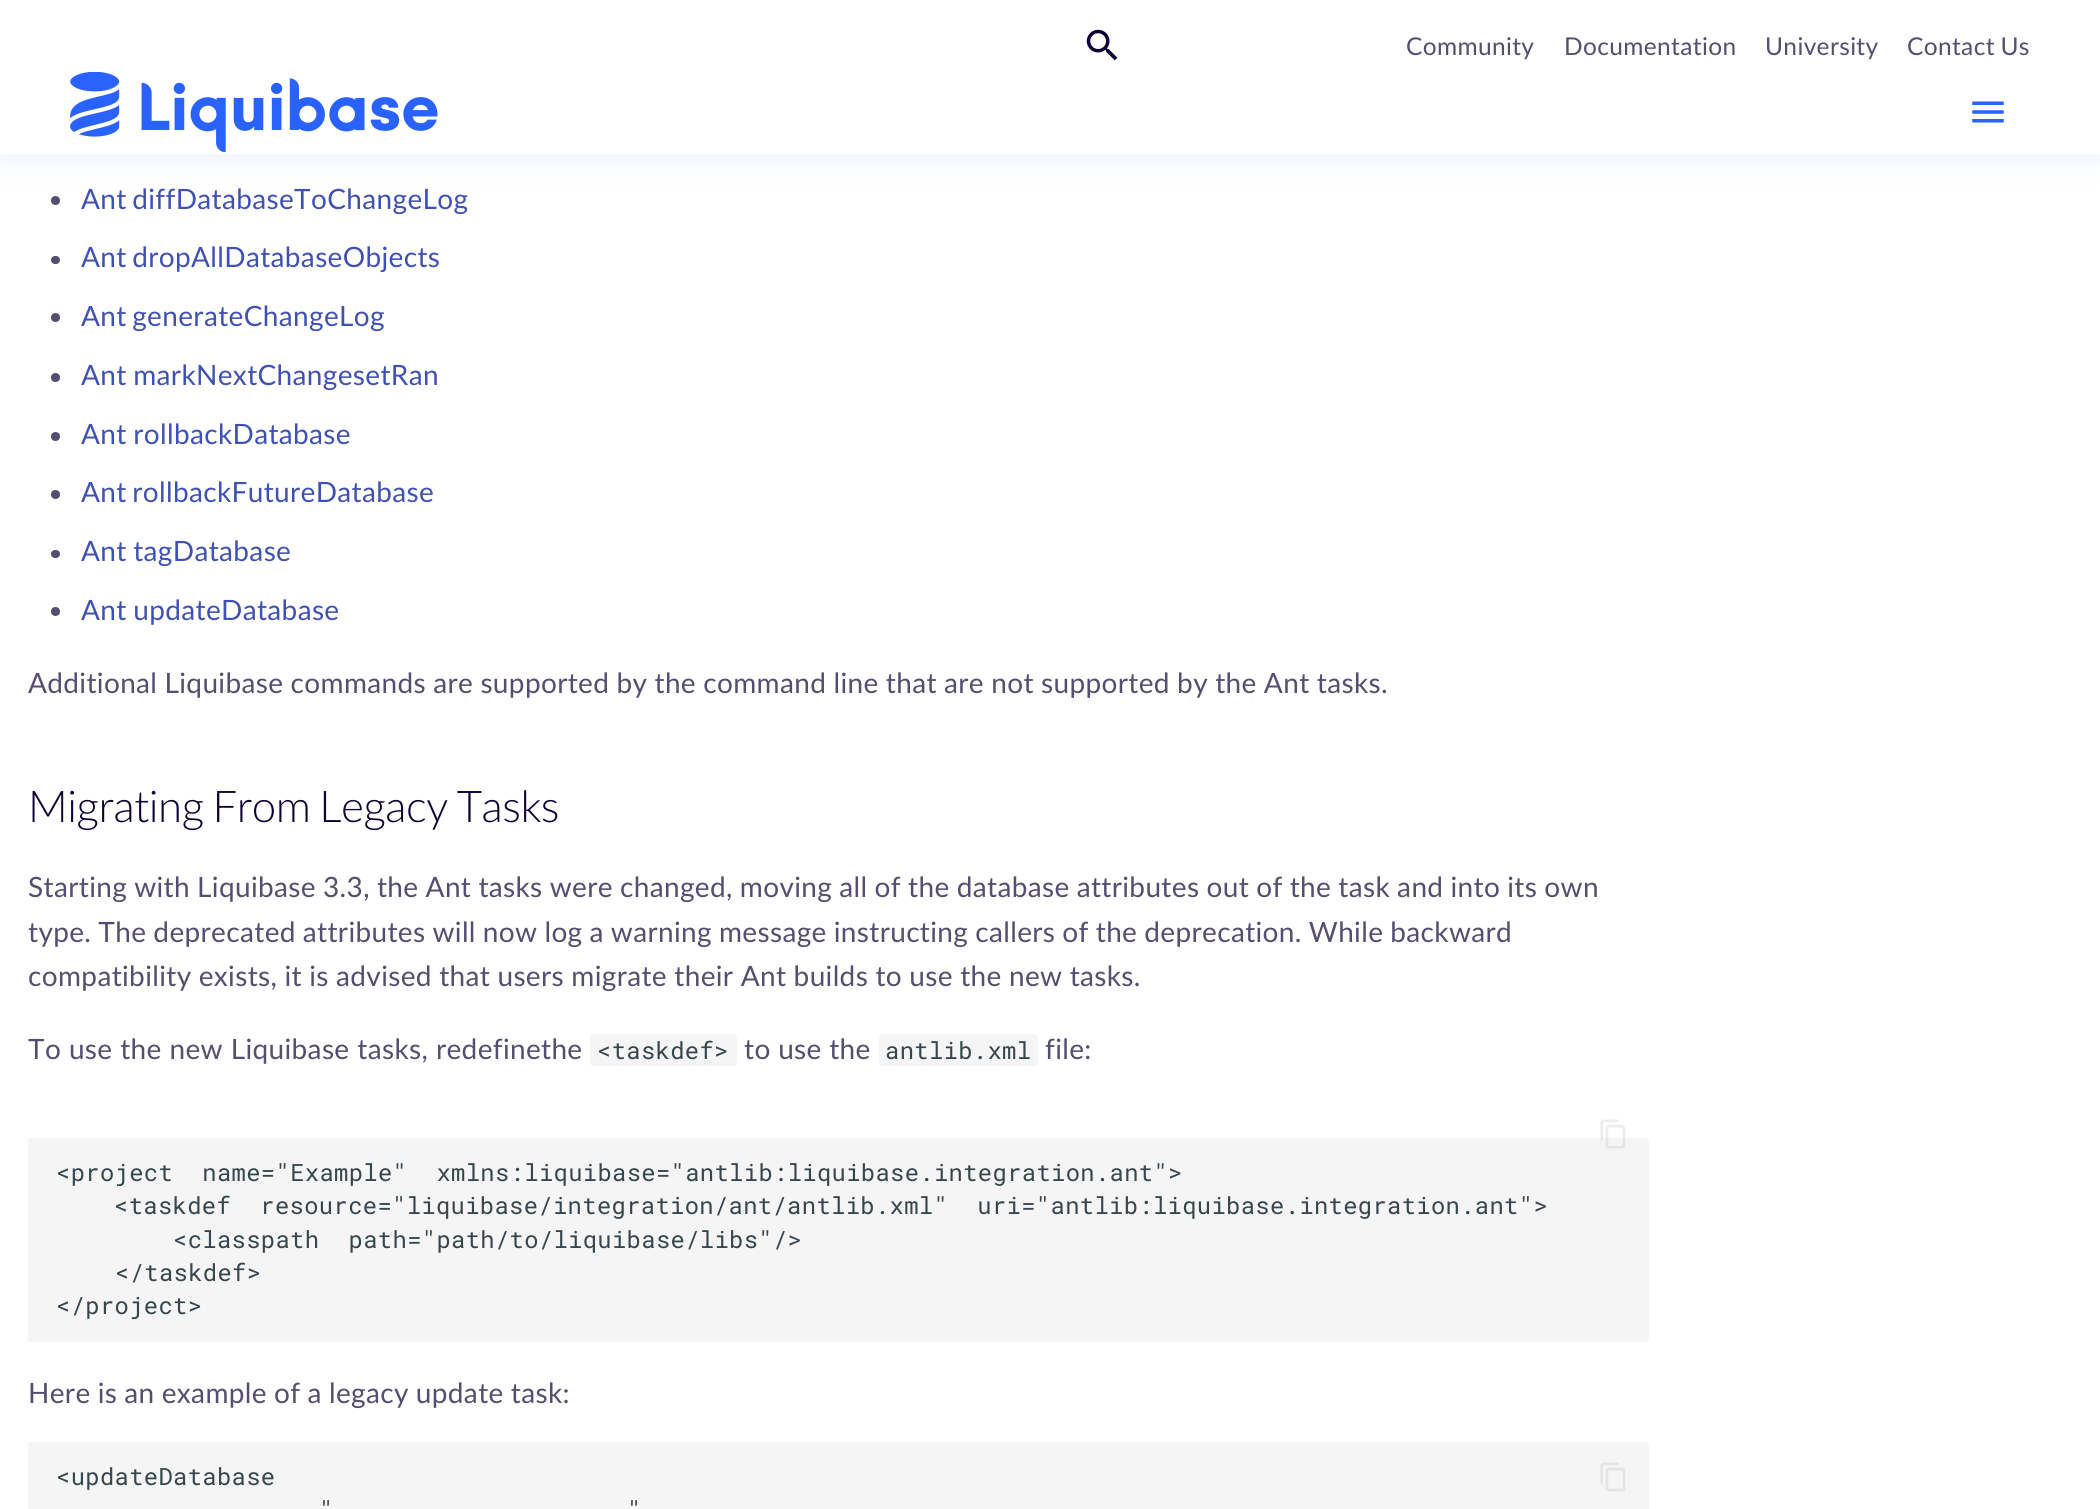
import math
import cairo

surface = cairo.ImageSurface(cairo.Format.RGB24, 2100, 1509)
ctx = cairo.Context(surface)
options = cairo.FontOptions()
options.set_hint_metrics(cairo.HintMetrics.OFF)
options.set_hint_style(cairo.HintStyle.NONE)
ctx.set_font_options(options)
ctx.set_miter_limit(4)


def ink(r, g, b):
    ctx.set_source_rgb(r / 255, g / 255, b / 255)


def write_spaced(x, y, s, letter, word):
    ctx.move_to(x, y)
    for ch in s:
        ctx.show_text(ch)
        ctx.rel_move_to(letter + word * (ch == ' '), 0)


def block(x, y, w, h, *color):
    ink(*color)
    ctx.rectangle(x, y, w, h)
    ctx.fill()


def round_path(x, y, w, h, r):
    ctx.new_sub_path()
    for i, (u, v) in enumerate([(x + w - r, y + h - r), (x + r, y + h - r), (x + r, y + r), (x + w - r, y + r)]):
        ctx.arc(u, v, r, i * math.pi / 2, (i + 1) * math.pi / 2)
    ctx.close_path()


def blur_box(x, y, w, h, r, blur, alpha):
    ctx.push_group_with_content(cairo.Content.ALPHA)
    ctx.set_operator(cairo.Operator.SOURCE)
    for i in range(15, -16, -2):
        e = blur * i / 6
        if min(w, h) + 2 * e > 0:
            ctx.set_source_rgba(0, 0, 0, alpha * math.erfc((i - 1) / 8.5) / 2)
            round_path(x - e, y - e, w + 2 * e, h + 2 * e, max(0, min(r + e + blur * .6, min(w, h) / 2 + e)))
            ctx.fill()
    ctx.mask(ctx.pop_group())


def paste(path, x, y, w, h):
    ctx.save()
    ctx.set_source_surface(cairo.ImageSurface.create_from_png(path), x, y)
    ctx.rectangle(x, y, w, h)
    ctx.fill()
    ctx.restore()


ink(255, 255, 255)
ctx.paint()
ink(86, 77, 112)
ctx.arc(55.5, 200.5, 4.5, 0, 2 * math.pi)
ctx.fill()
ink(41, 98, 255)
blur_box(0, 0, 2100, 154, 0, 17.5, 0.12)
block(0, 0, 2100, 154, 255, 255, 255)
paste("pic1.png", 1086, 29, 32, 32)
ctx.select_font_face("Lato")
ctx.set_font_size(24.5)
ink(86, 77, 112)
write_spaced(1406, 55, "Community", 0.35, 0)
write_spaced(1564, 55, "Documentation", 0.35, 0)
write_spaced(1765, 55, "University", 0.35, 0)
write_spaced(1907, 55, "Contact Us", 0.35, -1)
paste("pic2.png", 70, 72, 368, 80)
paste("pic3.png", 1972, 101, 32, 22)
ctx.set_font_size(28)
ink(64, 81, 181)
write_spaced(81, 209, "Ant diffDatabaseToChangeLog", 0.35, -2)
ink(86, 77, 112)
round_path(51, 256, 9, 8, 4)
ctx.fill()
ink(64, 81, 181)
write_spaced(81, 267, "Ant dropAllDatabaseObjects", 0.35, -2)
ink(86, 77, 112)
ctx.new_path()
ctx.arc(55.5, 317.5, 4.5, 0, 2 * math.pi)
ctx.fill()
ink(64, 81, 181)
write_spaced(81, 326, "Ant generateChangeLog", 0.35, -2)
ink(86, 77, 112)
ctx.new_path()
ctx.arc(55.5, 377.5, 4.5, 0, 2 * math.pi)
ctx.fill()
ink(64, 81, 181)
write_spaced(81, 385, "Ant markNextChangesetRan", 0.35, -1)
ink(86, 77, 112)
ctx.new_path()
ctx.arc(55.5, 436.5, 4.5, 0, 2 * math.pi)
ctx.fill()
ink(64, 81, 181)
write_spaced(81, 444, "Ant rollbackDatabase", 0.35, -1)
ink(86, 77, 112)
ctx.new_path()
ctx.arc(55.5, 494.5, 4.5, 0, 2 * math.pi)
ctx.fill()
ink(64, 81, 181)
write_spaced(81, 502, "Ant rollbackFutureDatabase", 0.35, -2)
ink(86, 77, 112)
round_path(51, 550, 9, 8, 4)
ctx.fill()
ink(64, 81, 181)
write_spaced(81, 561, "Ant tagDatabase", 0.35, -1)
ink(86, 77, 112)
ctx.new_path()
ctx.arc(55.5, 611.5, 4.5, 0, 2 * math.pi)
ctx.fill()
ink(64, 81, 181)
write_spaced(81, 620, "Ant updateDatabase", 0.35, -1)
ink(86, 77, 112)
write_spaced(28, 693, "Additional Liquibase commands are supported by the command line that are not supported by the Ant tasks.", 0.35, -0.3)
ctx.select_font_face("Lato Light")
ctx.set_font_size(43.75)
ink(14, 0, 51)
write_spaced(28, 822, "Migrating From Legacy Tasks", -0.45, -2.5)
ctx.select_font_face("Lato")
ctx.set_font_size(28)
ink(86, 77, 112)
write_spaced(28, 897, "Starting with Liquibase 3.3, the Ant tasks were changed, moving all of the database attributes out of the task and into its own", 0.35, -0.4)
write_spaced(28, 942, "type. The deprecated attributes will now log a warning message instructing callers of the deprecation. While backward", 0.35, -0.5)
write_spaced(28, 986, "compatibility exists, it is advised that users migrate their Ant builds to use the new tasks.", 0.35, -0.25)
write_spaced(28, 1059, "To use the new Liquibase tasks, redefine", 0.35, 0.25)
write_spaced(541, 1059, "the", 0.35, 0)
ink(245, 245, 245)
round_path(590, 1034, 147, 32, 4)
ctx.fill()
ctx.select_font_face("Roboto Mono")
ctx.set_font_size(23.8)
ink(54, 70, 78)
write_spaced(597, 1059, "<taskdef>", 0.35, 0)
ctx.select_font_face("Lato")
ctx.set_font_size(28)
ink(86, 77, 112)
write_spaced(744, 1059, "to use the", 0.35, 0)
ink(245, 245, 245)
round_path(879, 1034, 159, 32, 4)
ctx.fill()
ctx.select_font_face("Roboto Mono")
ctx.set_font_size(23.8)
ink(54, 70, 78)
write_spaced(885, 1059, "antlib.xml", 0.35, 0)
ctx.select_font_face("Lato")
ctx.set_font_size(28)
ink(86, 77, 112)
write_spaced(1045, 1059, "file:", 0.35, 0)
ink(245, 245, 245)
round_path(28, 1138, 1621, 204, 4)
ctx.fill()
paste("pic4.png", 1600, 1119, 26, 30)
ctx.select_font_face("Roboto Mono")
ctx.set_font_size(23.8)
ink(54, 70, 78)
write_spaced(56, 1181, "<project  name=\"Example\"  xmlns:liquibase=\"antlib:liquibase.integration.ant\">", 0.35, 0)
write_spaced(114, 1214, "<taskdef  resource=\"liquibase/integration/ant/antlib.xml\"  uri=\"antlib:liquibase.integration.ant\">", 0.35, 0)
write_spaced(173, 1248, "<classpath  path=\"path/to/liquibase/libs\"/>", 0.35, 0)
write_spaced(115, 1281, "</taskdef>", 0.35, 0)
write_spaced(56, 1314, "</project>", 0.35, 0)
ctx.select_font_face("Lato")
ctx.set_font_size(28)
ink(86, 77, 112)
write_spaced(28, 1403, "Here is an example of a legacy update task:", 0.35, -0.4)
ink(245, 245, 245)
round_path(28, 1442, 1621, 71, 4)
ctx.fill()
ctx.select_font_face("Roboto Mono")
ctx.set_font_size(23.8)
ink(54, 70, 78)
write_spaced(56, 1485, "<updateDatabase", 0.35, 0)
write_spaced(319, 1518, "\"", 0.35, 0)
write_spaced(627, 1518, "\"", 0.35, 0)
paste("pic5.png", 1600, 1462, 26, 30)
surface.write_to_png("screenshot.png")
